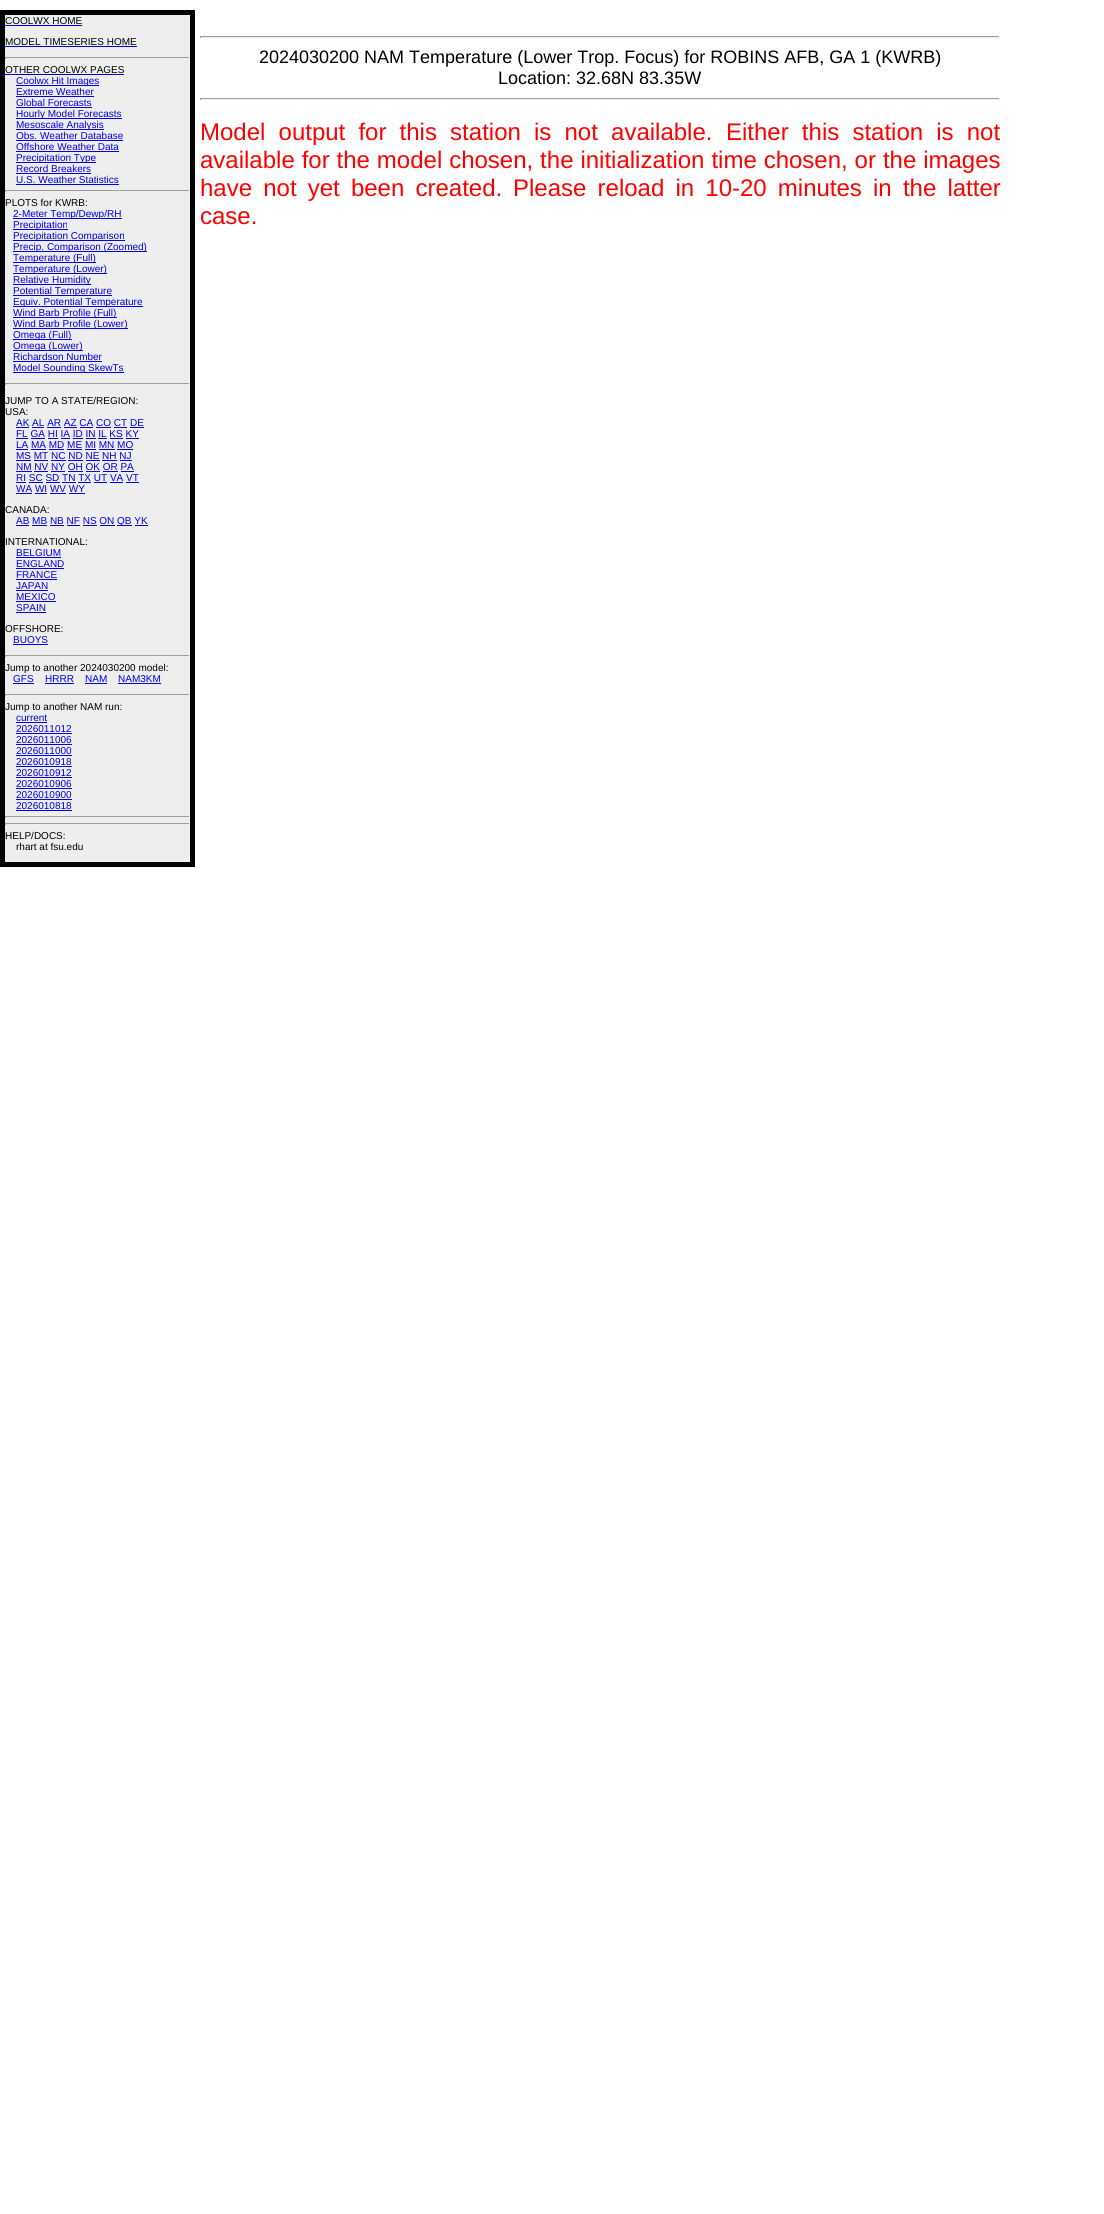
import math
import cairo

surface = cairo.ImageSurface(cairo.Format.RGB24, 1104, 2214)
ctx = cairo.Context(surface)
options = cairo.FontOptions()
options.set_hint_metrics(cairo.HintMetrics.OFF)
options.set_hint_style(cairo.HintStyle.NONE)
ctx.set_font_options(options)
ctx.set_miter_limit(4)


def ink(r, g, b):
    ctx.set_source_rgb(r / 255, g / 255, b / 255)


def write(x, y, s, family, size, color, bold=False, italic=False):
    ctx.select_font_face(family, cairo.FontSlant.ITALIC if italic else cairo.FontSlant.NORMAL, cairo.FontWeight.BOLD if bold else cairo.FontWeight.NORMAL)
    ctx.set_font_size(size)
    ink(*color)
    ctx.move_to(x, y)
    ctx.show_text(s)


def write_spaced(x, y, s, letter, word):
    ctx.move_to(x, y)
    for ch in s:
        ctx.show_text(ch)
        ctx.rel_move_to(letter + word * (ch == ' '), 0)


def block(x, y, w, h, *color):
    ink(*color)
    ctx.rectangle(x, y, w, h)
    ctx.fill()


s1 = dict(family="Liberation Sans", size=10, color=(0, 0, 0))
s2 = dict(family="Liberation Sans", size=10, color=(0, 0, 238))
s3 = dict(family="Liberation Sans", size=18, color=(0, 0, 0))
s4 = dict(family="Liberation Sans", size=24, color=(255, 0, 0))

ink(255, 255, 255)
ctx.paint()
ink(238, 238, 238)
ctx.rectangle(2.5, 12.5, 190, 852)
ctx.fill_preserve()
ink(0, 0, 0)
ctx.set_line_width(5)
ctx.stroke()
write(5, 24, "COOLWX HOME", **s1)
block(5, 25, 77, 1, 0, 0, 238)
write(5, 45, "MODEL TIMESERIES HOME", **s1)
block(5, 46, 132, 1, 0, 0, 238)
block(5, 57, 185, 1, 159, 159, 159)
block(189, 57, 1, 2, 238, 238, 238)
block(5, 57, 1, 2, 159, 159, 159)
write(5, 73, "OTHER COOLWX PAGES", **s1)
block(5, 74, 119, 1, 0, 0, 238)
block(16, 85, 83, 1, 0, 0, 238)
write(16, 84, "Coolwx Hit Images", **s2)
write(16, 95, "Extreme Weather", **s2)
block(16, 96, 78, 1, 0, 0, 238)
write(16, 106, "Global Forecasts", **s2)
block(16, 107, 76, 1, 0, 0, 238)
block(16, 118, 106, 1, 0, 0, 238)
write(16, 117, "Hourly Model Forecasts", **s2)
block(16, 129, 88, 1, 0, 0, 238)
write(16, 128, "Mesoscale Analysis", **s2)
write(16, 139, "Obs. Weather Database", **s2)
block(16, 140, 107, 1, 0, 0, 238)
write(16, 150, "Offshore Weather Data", **s2)
block(16, 151, 103, 1, 0, 0, 238)
block(16, 162, 80, 1, 0, 0, 238)
write(16, 161, "Precipitation Type", **s2)
write(16, 172, "Record Breakers", **s2)
block(16, 173, 75, 1, 0, 0, 238)
write(16, 183, "U.S. Weather Statistics", **s2)
block(16, 184, 103, 1, 0, 0, 238)
block(5, 190, 185, 1, 159, 159, 159)
block(189, 190, 1, 2, 238, 238, 238)
block(5, 190, 1, 2, 159, 159, 159)
write(5, 206, "PLOTS for KWRB:", **s1)
block(13, 218, 109, 1, 0, 0, 238)
write(13, 217, "2-Meter Temp/Dewp/RH", **s2)
block(13, 229, 55, 1, 0, 0, 238)
write(13, 228, "Precipitation", **s2)
block(13, 240, 112, 1, 0, 0, 238)
write(13, 239, "Precipitation Comparison", **s2)
block(13, 251, 134, 1, 0, 0, 238)
write(13, 250, "Precip. Comparison (Zoomed)", **s2)
block(13, 262, 83, 1, 0, 0, 238)
write(13, 261, "Temperature (Full)", **s2)
block(13, 273, 94, 1, 0, 0, 238)
write(13, 272, "Temperature (Lower)", **s2)
block(13, 284, 78, 1, 0, 0, 238)
write(13, 283, "Relative Humidity", **s2)
block(13, 295, 99, 1, 0, 0, 238)
write(13, 294, "Potential Temperature", **s2)
block(13, 306, 130, 1, 0, 0, 238)
write(13, 305, "Equiv. Potential Temperature", **s2)
block(13, 317, 104, 1, 0, 0, 238)
write(13, 316, "Wind Barb Profile (Full)", **s2)
block(13, 328, 115, 1, 0, 0, 238)
write(13, 327, "Wind Barb Profile (Lower)", **s2)
block(13, 339, 59, 1, 0, 0, 238)
write(13, 338, "Omega (Full)", **s2)
block(13, 350, 70, 1, 0, 0, 238)
write(13, 349, "Omega (Lower)", **s2)
write(13, 360, "Richardson Number", **s2)
block(13, 361, 89, 1, 0, 0, 238)
block(13, 372, 111, 1, 0, 0, 238)
write(13, 371, "Model Sounding SkewTs", **s2)
block(5, 383, 185, 1, 159, 159, 159)
block(189, 383, 1, 2, 238, 238, 238)
block(5, 383, 1, 2, 159, 159, 159)
write(5, 404, "JUMP TO A STATE/REGION:", **s1)
write(5, 415, "USA:", **s1)
write(16, 426, "AK AL AR AZ CA CO CT DE", **s2)
block(16, 427, 13, 1, 0, 0, 238)
block(32, 427, 12, 1, 0, 0, 238)
block(47, 427, 14, 1, 0, 0, 238)
block(64, 427, 13, 1, 0, 0, 238)
block(80, 427, 13, 1, 0, 0, 238)
block(96, 427, 15, 1, 0, 0, 238)
block(114, 427, 13, 1, 0, 0, 238)
block(130, 427, 14, 1, 0, 0, 238)
write(16, 437, "FL GA HI IA ID IN IL KS KY", **s2)
block(16, 438, 12, 1, 0, 0, 238)
block(31, 438, 14, 1, 0, 0, 238)
block(48, 438, 10, 1, 0, 0, 238)
block(61, 438, 9, 1, 0, 0, 238)
block(73, 438, 10, 1, 0, 0, 238)
block(86, 438, 10, 1, 0, 0, 238)
block(98, 438, 9, 1, 0, 0, 238)
block(110, 438, 13, 1, 0, 0, 238)
block(126, 438, 13, 1, 0, 0, 238)
write(16, 448, "LA MA MD ME MI MN MO", **s2)
block(16, 449, 12, 1, 0, 0, 238)
block(31, 449, 15, 1, 0, 0, 238)
block(49, 449, 15, 1, 0, 0, 238)
block(67, 449, 15, 1, 0, 0, 238)
block(85, 449, 11, 1, 0, 0, 238)
block(99, 449, 16, 1, 0, 0, 238)
block(117, 449, 16, 1, 0, 0, 238)
write(16, 459, "MS MT NC ND NE NH NJ", **s2)
block(16, 460, 15, 1, 0, 0, 238)
block(34, 460, 14, 1, 0, 0, 238)
block(51, 460, 15, 1, 0, 0, 238)
block(68, 460, 15, 1, 0, 0, 238)
block(86, 460, 14, 1, 0, 0, 238)
block(102, 460, 15, 1, 0, 0, 238)
block(120, 460, 12, 1, 0, 0, 238)
write(16, 470, "NM NV NY OH OK OR PA", **s2)
block(16, 471, 16, 1, 0, 0, 238)
block(34, 471, 14, 1, 0, 0, 238)
block(51, 471, 14, 1, 0, 0, 238)
block(68, 471, 15, 1, 0, 0, 238)
block(86, 471, 14, 1, 0, 0, 238)
block(103, 471, 15, 1, 0, 0, 238)
block(121, 471, 13, 1, 0, 0, 238)
write(16, 481, "RI SC SD TN TX UT VA VT", **s2)
block(16, 482, 10, 1, 0, 0, 238)
block(29, 482, 14, 1, 0, 0, 238)
block(46, 482, 14, 1, 0, 0, 238)
block(62, 482, 14, 1, 0, 0, 238)
block(78, 482, 13, 1, 0, 0, 238)
block(94, 482, 13, 1, 0, 0, 238)
block(110, 482, 13, 1, 0, 0, 238)
block(126, 482, 13, 1, 0, 0, 238)
write(16, 492, "WA WI WV WY", **s2)
block(16, 493, 16, 1, 0, 0, 238)
block(35, 493, 12, 1, 0, 0, 238)
block(50, 493, 16, 1, 0, 0, 238)
block(69, 493, 16, 1, 0, 0, 238)
write(5, 513, "CANADA:", **s1)
write(16, 524, "AB MB NB NF NS ON", **s2)
block(16, 525, 13, 1, 0, 0, 238)
block(117, 525, 15, 1, 0, 0, 238)
write(117, 524, "QB YK", **s2)
block(32, 525, 15, 1, 0, 0, 238)
block(50, 525, 14, 1, 0, 0, 238)
block(67, 525, 13, 1, 0, 0, 238)
block(83, 525, 14, 1, 0, 0, 238)
block(100, 525, 15, 1, 0, 0, 238)
block(135, 525, 13, 1, 0, 0, 238)
write(5, 545, "INTERNATIONAL:", **s1)
write(16, 556, "BELGIUM", **s2)
block(16, 557, 45, 1, 0, 0, 238)
write(16, 567, "ENGLAND", **s2)
block(16, 568, 48, 1, 0, 0, 238)
write(16, 578, "FRANCE", **s2)
block(16, 579, 41, 1, 0, 0, 238)
write(16, 589, "JAPAN", **s2)
block(16, 590, 32, 1, 0, 0, 238)
write(16, 600, "MEXICO", **s2)
block(16, 601, 40, 1, 0, 0, 238)
write(16, 611, "SPAIN", **s2)
block(16, 612, 30, 1, 0, 0, 238)
write(5, 632, "OFFSHORE:", **s1)
write(13, 643, "BUOYS", **s2)
block(13, 644, 35, 1, 0, 0, 238)
block(5, 655, 185, 1, 159, 159, 159)
block(189, 655, 1, 2, 238, 238, 238)
block(5, 655, 1, 2, 159, 159, 159)
write(5, 671, "Jump to another 2024030200 model:", **s1)
write(13, 682, "GFS", **s2)
block(13, 683, 21, 1, 0, 0, 238)
write(45, 682, "HRRR", **s2)
block(45, 683, 29, 1, 0, 0, 238)
write(85, 682, "NAM", **s2)
block(85, 683, 22, 1, 0, 0, 238)
write(118, 682, "NAM3KM", **s2)
block(118, 683, 43, 1, 0, 0, 238)
block(5, 694, 185, 1, 159, 159, 159)
block(189, 694, 1, 2, 238, 238, 238)
block(5, 694, 1, 2, 159, 159, 159)
write(5, 710, "Jump to another NAM run:", **s1)
write(16, 721, "current", **s2)
block(16, 722, 31, 1, 0, 0, 238)
write(16, 732, "2026011012", **s2)
block(16, 733, 56, 1, 0, 0, 238)
write(16, 743, "2026011006", **s2)
block(16, 744, 56, 1, 0, 0, 238)
write(16, 754, "2026011000", **s2)
block(16, 755, 56, 1, 0, 0, 238)
write(16, 765, "2026010918", **s2)
block(16, 766, 56, 1, 0, 0, 238)
write(16, 776, "2026010912", **s2)
block(16, 777, 56, 1, 0, 0, 238)
write(16, 787, "2026010906", **s2)
block(16, 788, 56, 1, 0, 0, 238)
write(16, 798, "2026010900", **s2)
block(16, 799, 56, 1, 0, 0, 238)
write(16, 809, "2026010818", **s2)
block(16, 810, 56, 1, 0, 0, 238)
block(5, 816, 185, 1, 159, 159, 159)
block(189, 816, 1, 2, 238, 238, 238)
block(5, 816, 1, 2, 159, 159, 159)
block(5, 823, 185, 1, 159, 159, 159)
block(189, 823, 1, 2, 238, 238, 238)
block(5, 823, 1, 2, 159, 159, 159)
write(5, 839, "HELP/DOCS:", **s1)
write(16, 850, "rhart at fsu.edu", **s1)
block(200, 36, 800, 1, 159, 159, 159)
block(999, 36, 1, 2, 238, 238, 238)
block(200, 37, 800, 1, 238, 238, 238)
block(200, 36, 1, 2, 159, 159, 159)
write(259, 63, "2024030200 NAM Temperature (Lower Trop. Focus) for ROBINS AFB, GA 1 (KWRB)", **s3)
write(498, 84, "Location: 32.68N 83.35W", **s3)
block(200, 98, 800, 1, 159, 159, 159)
block(999, 98, 1, 2, 238, 238, 238)
block(200, 99, 800, 1, 238, 238, 238)
block(200, 98, 1, 2, 159, 159, 159)
ctx.set_font_size(24)
ink(255, 0, 0)
write_spaced(200, 140, "Model output for this station is not available.", 0, 6.5)
write_spaced(726, 140, "Either this station is not", 0, 6.5)
write_spaced(200, 168, "available for the model chosen, the initialization time chosen, or the images", 0, 0.25)
write_spaced(200, 196, "have not yet been created.", 0, 4.5)
write_spaced(513, 196, "Please reload in 10-20 minutes in the latter", 0, 4.5)
write(200, 224, "case.", **s4)
surface.write_to_png("screenshot.png")
